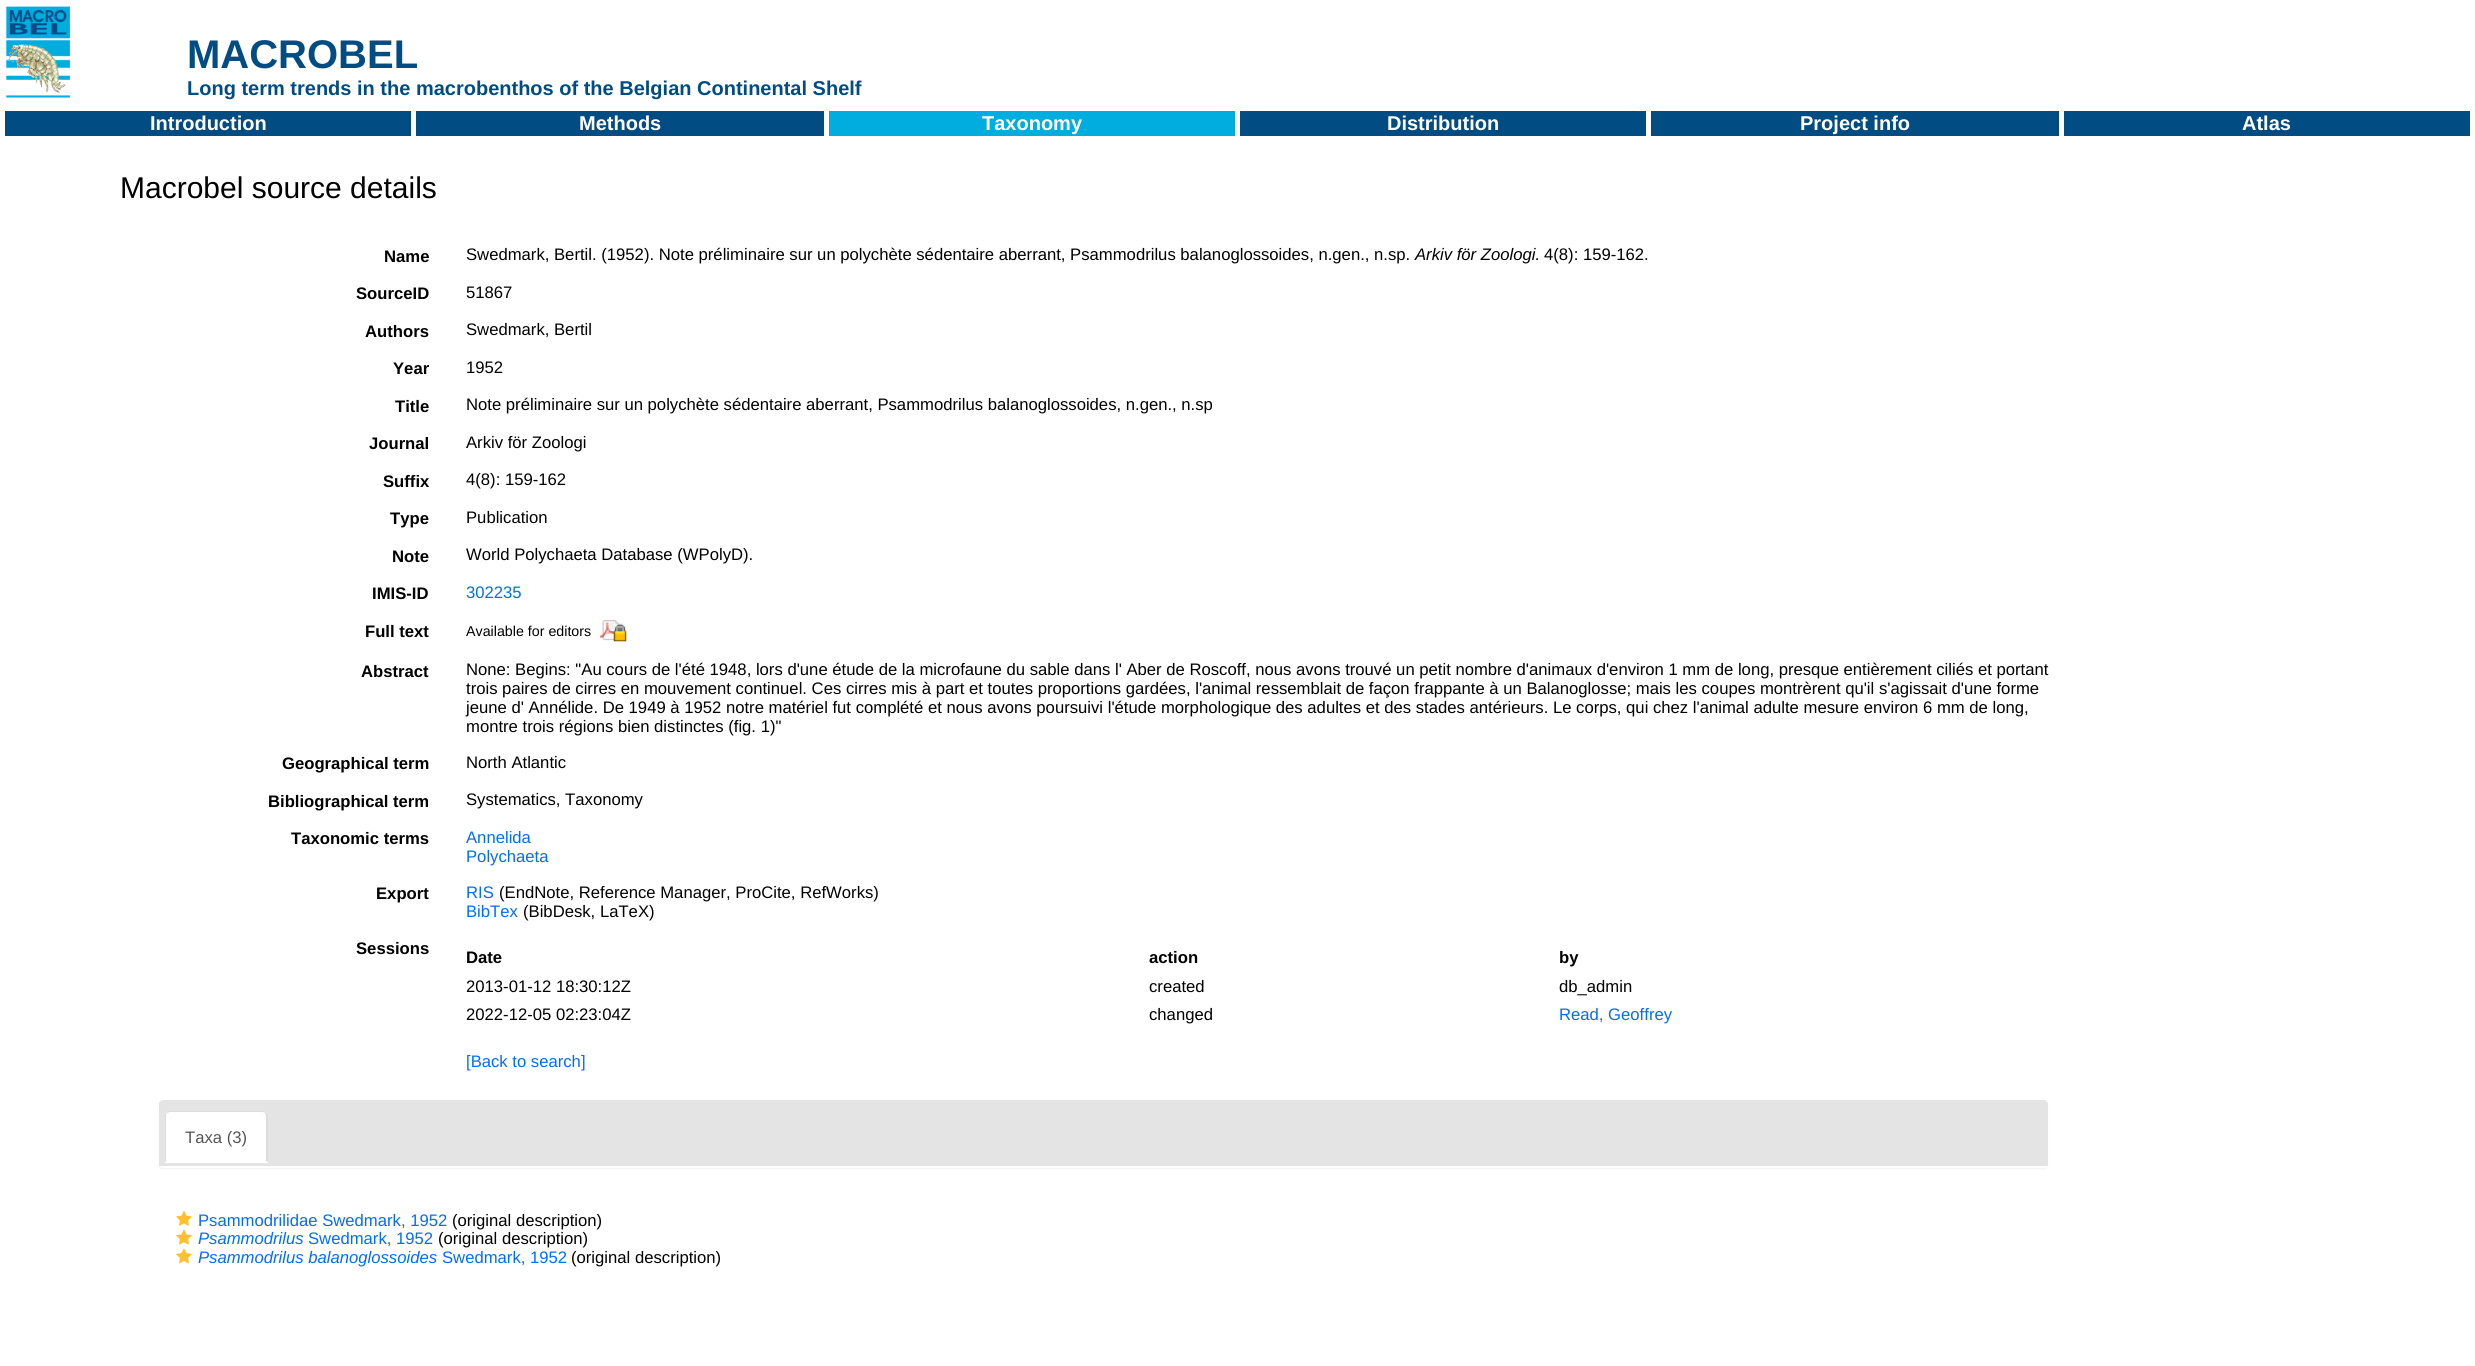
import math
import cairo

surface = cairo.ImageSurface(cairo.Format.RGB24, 2475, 1366)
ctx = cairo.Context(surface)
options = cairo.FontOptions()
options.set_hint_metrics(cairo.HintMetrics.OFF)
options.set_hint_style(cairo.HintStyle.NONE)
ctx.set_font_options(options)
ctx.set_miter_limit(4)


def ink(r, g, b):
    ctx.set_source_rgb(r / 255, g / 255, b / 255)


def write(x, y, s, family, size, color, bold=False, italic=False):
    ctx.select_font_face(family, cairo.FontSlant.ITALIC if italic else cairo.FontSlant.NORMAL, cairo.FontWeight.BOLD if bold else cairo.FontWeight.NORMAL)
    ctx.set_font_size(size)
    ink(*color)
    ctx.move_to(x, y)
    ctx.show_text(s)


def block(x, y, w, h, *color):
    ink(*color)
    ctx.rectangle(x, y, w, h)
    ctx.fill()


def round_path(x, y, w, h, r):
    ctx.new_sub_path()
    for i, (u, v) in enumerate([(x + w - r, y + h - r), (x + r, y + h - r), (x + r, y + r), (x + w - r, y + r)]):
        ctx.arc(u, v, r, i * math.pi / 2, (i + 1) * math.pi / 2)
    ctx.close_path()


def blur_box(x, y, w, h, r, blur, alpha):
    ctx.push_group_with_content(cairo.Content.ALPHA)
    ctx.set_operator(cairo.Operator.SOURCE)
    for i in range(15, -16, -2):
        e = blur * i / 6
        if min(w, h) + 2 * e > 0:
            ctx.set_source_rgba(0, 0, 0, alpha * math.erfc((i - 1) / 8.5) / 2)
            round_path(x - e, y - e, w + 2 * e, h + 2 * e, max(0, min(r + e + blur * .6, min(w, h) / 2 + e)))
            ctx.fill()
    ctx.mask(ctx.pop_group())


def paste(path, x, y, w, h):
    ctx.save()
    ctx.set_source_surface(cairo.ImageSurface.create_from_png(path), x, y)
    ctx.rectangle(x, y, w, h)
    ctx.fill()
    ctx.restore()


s1 = dict(family="Liberation Sans", size=40, color=(2, 76, 132), bold=True)
s2 = dict(family="Liberation Sans", size=20, color=(2, 76, 132), bold=True)
s3 = dict(family="Liberation Sans", size=20, color=(255, 255, 255), bold=True)
s4 = dict(family="Liberation Sans", size=30, color=(0, 0, 0))
s5 = dict(family="Liberation Sans", size=16.67, color=(0, 0, 0), bold=True)
s6 = dict(family="Liberation Sans", size=16.67, color=(0, 0, 0))
s7 = dict(family="Liberation Sans", size=16.67, color=(0, 0, 0), italic=True)
s8 = dict(family="Liberation Sans", size=16.67, color=(2, 109, 251))
s9 = dict(family="Liberation Sans", size=14.25, color=(0, 0, 0))
s10 = dict(family="Liberation Sans", size=16.67, color=(85, 85, 85))
s11 = dict(family="Liberation Sans", size=16.67, color=(2, 109, 251), italic=True)

ink(255, 255, 255)
ctx.paint()
paste("pic1.png", 6, 6, 64, 94)
write(187, 68, "MACROBEL", **s1)
write(187, 95, "Long term trends in the macrobenthos of the Belgian Continental Shelf", **s2)
block(5, 111, 406, 25, 2, 76, 132)
write(150, 130, "Introduction", **s3)
block(416, 111, 408, 25, 2, 76, 132)
write(579, 130, "Methods", **s3)
block(829, 111, 406, 25, 0, 173, 222)
write(982, 130, "Taxonomy", **s3)
block(1240, 111, 406, 25, 2, 76, 132)
write(1387, 130, "Distribution", **s3)
block(1651, 111, 408, 25, 2, 76, 132)
write(1800, 130, "Project info", **s3)
block(2064, 111, 406, 25, 2, 76, 132)
write(2242, 130, "Atlas", **s3)
write(120, 198, "Macrobel source details", **s4)
write(384, 262, "Name", **s5)
write(466, 260, "Swedmark, Bertil. (1952). Note préliminaire sur un polychète sédentaire aberrant, Psammodrilus balanoglossoides, n.gen., n.sp.", **s6)
write(1415, 260, "Arkiv för Zoologi.", **s7)
write(1544, 260, "4(8): 159-162.", **s6)
write(356, 299, "SourceID", **s5)
write(466, 298, "51867", **s6)
write(365, 337, "Authors", **s5)
write(466, 335, "Swedmark, Bertil", **s6)
write(393, 374, "Year", **s5)
write(466, 373, "1952", **s6)
write(395, 412, "Title", **s5)
write(466, 410, "Note préliminaire sur un polychète sédentaire aberrant, Psammodrilus balanoglossoides, n.gen., n.sp", **s6)
write(369, 449, "Journal", **s5)
write(466, 448, "Arkiv för Zoologi", **s6)
write(383, 487, "Suffix", **s5)
write(466, 485, "4(8): 159-162", **s6)
write(390, 524, "Type", **s5)
write(466, 523, "Publication", **s6)
write(392, 562, "Note", **s5)
write(466, 560, "World Polychaeta Database (WPolyD).", **s6)
write(372, 599, "IMIS-ID", **s5)
write(466, 598, "302235", **s8)
write(365, 637, "Full text", **s5)
write(466, 636, "Available for editors", **s9)
paste("pic2.png", 600, 620, 27, 22)
write(361, 677, "Abstract", **s5)
write(466, 675, "None: Begins: \"Au cours de l'été 1948, lors d'une étude de la microfaune du sable dans l' Aber de Roscoff, nous avons trouvé un petit nombre d'animaux d'environ 1 mm de long, presque entièrement ciliés et portant", **s6)
write(466, 694, "trois paires de cirres en mouvement continuel. Ces cirres mis à part et toutes proportions gardées, l'animal ressemblait de façon frappante à un Balanoglosse; mais les coupes montrèrent qu'il s'agissait d'une forme", **s6)
write(466, 713, "jeune d' Annélide. De 1949 à 1952 notre matériel fut complété et nous avons poursuivi l'étude morphologique des adultes et des stades antérieurs. Le corps, qui chez l'animal adulte mesure environ 6 mm de long,", **s6)
write(466, 732, "montre trois régions bien distinctes (fig. 1)\"", **s6)
write(282, 769, "Geographical term", **s5)
write(466, 768, "North Atlantic", **s6)
write(268, 807, "Bibliographical term", **s5)
write(466, 805, "Systematics, Taxonomy", **s6)
write(291, 844, "Taxonomic terms", **s5)
write(466, 843, "Annelida", **s8)
write(466, 862, "Polychaeta", **s8)
write(376, 899, "Export", **s5)
write(466, 898, "RIS", **s8)
write(499, 898, "(EndNote, Reference Manager, ProCite, RefWorks)", **s6)
write(466, 917, "BibTex", **s8)
write(523, 917, "(BibDesk, LaTeX)", **s6)
write(356, 954, "Sessions", **s5)
write(466, 963, "Date", **s5)
write(1149, 963, "action", **s5)
write(1559, 963, "by", **s5)
write(466, 992, "2013-01-12 18:30:12Z", **s6)
write(1149, 992, "created", **s6)
write(1559, 992, "db_admin", **s6)
write(466, 1020, "2022-12-05 02:23:04Z", **s6)
write(1149, 1020, "changed", **s6)
write(1559, 1020, "Read, Geoffrey", **s8)
write(466, 1067, "[Back to search]", **s8)
ctx.save()
ctx.set_fill_rule(cairo.FillRule.EVEN_ODD)
ctx.new_path()
ctx.move_to(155, 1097)
ctx.line_to(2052, 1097)
ctx.line_to(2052, 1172)
ctx.line_to(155, 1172)
ctx.close_path()
ctx.move_to(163, 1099)
ctx.line_to(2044, 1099)
ctx.curve_to(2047, 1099, 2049, 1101, 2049, 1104)
ctx.line_to(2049, 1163)
ctx.curve_to(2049, 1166, 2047, 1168, 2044, 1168)
ctx.line_to(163, 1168)
ctx.curve_to(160, 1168, 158, 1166, 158, 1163)
ctx.line_to(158, 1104)
ctx.curve_to(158, 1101, 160, 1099, 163, 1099)
ctx.close_path()
ctx.clip()
ink(0, 0, 0)
blur_box(158, 1100, 1891, 69, 5, 0.5, 0.05)
ctx.restore()
ctx.set_source_rgba(0.471, 0.471, 0.471, 0.2)
ctx.new_path()
ctx.move_to(163, 1100)
ctx.line_to(2044, 1100)
ctx.curve_to(2046, 1100, 2048, 1102, 2048, 1104)
ctx.line_to(2048, 1166)
ctx.line_to(159, 1166)
ctx.line_to(159, 1104)
ctx.curve_to(159, 1102, 161, 1100, 163, 1100)
ctx.close_path()
ctx.fill()
ink(255, 255, 255)
ctx.new_path()
ctx.move_to(170, 1111)
ctx.line_to(263, 1111)
ctx.curve_to(266, 1111, 268, 1113, 268, 1116)
ctx.line_to(268, 1163)
ctx.line_to(165, 1163)
ctx.line_to(165, 1116)
ctx.curve_to(165, 1113, 167, 1111, 170, 1111)
ctx.close_path()
ctx.fill()
ink(221, 221, 221)
ctx.new_path()
ctx.move_to(170, 1112)
ctx.line_to(167, 1113)
ctx.line_to(166, 1113)
ctx.line_to(168, 1111)
ctx.line_to(264, 1111)
ctx.line_to(266, 1112)
ctx.line_to(265, 1113)
ctx.curve_to(265, 1113, 264, 1112, 262, 1112)
ctx.close_path()
ctx.fill()
ctx.new_path()
ctx.move_to(268, 1162)
ctx.line_to(266, 1161)
ctx.line_to(266, 1116)
ctx.line_to(265, 1113)
ctx.line_to(266, 1112)
ctx.line_to(268, 1114)
ctx.close_path()
ctx.fill()
ctx.new_path()
ctx.move_to(165, 1116)
ctx.line_to(165, 1162)
ctx.line_to(166, 1161)
ctx.line_to(166, 1116)
ctx.curve_to(166, 1115, 166, 1114, 167, 1113)
ctx.line_to(166, 1113)
ctx.curve_to(165, 1113, 165, 1115, 165, 1116)
ctx.close_path()
ctx.fill()
write(185, 1143, "Taxa (3)", **s10)
paste("pic3.png", 176, 1211, 16, 15)
write(198, 1226, "Psammodrilidae Swedmark, 1952", **s8)
write(452, 1226, "(original description)", **s6)
paste("pic4.png", 176, 1229, 16, 16)
write(198, 1244, "Psammodrilus", **s11)
write(308, 1244, "Swedmark, 1952", **s8)
write(438, 1244, "(original description)", **s6)
paste("pic5.png", 176, 1248, 16, 16)
write(198, 1263, "Psammodrilus balanoglossoides", **s11)
write(442, 1263, "Swedmark, 1952", **s8)
write(571, 1263, "(original description)", **s6)
surface.write_to_png("screenshot.png")
